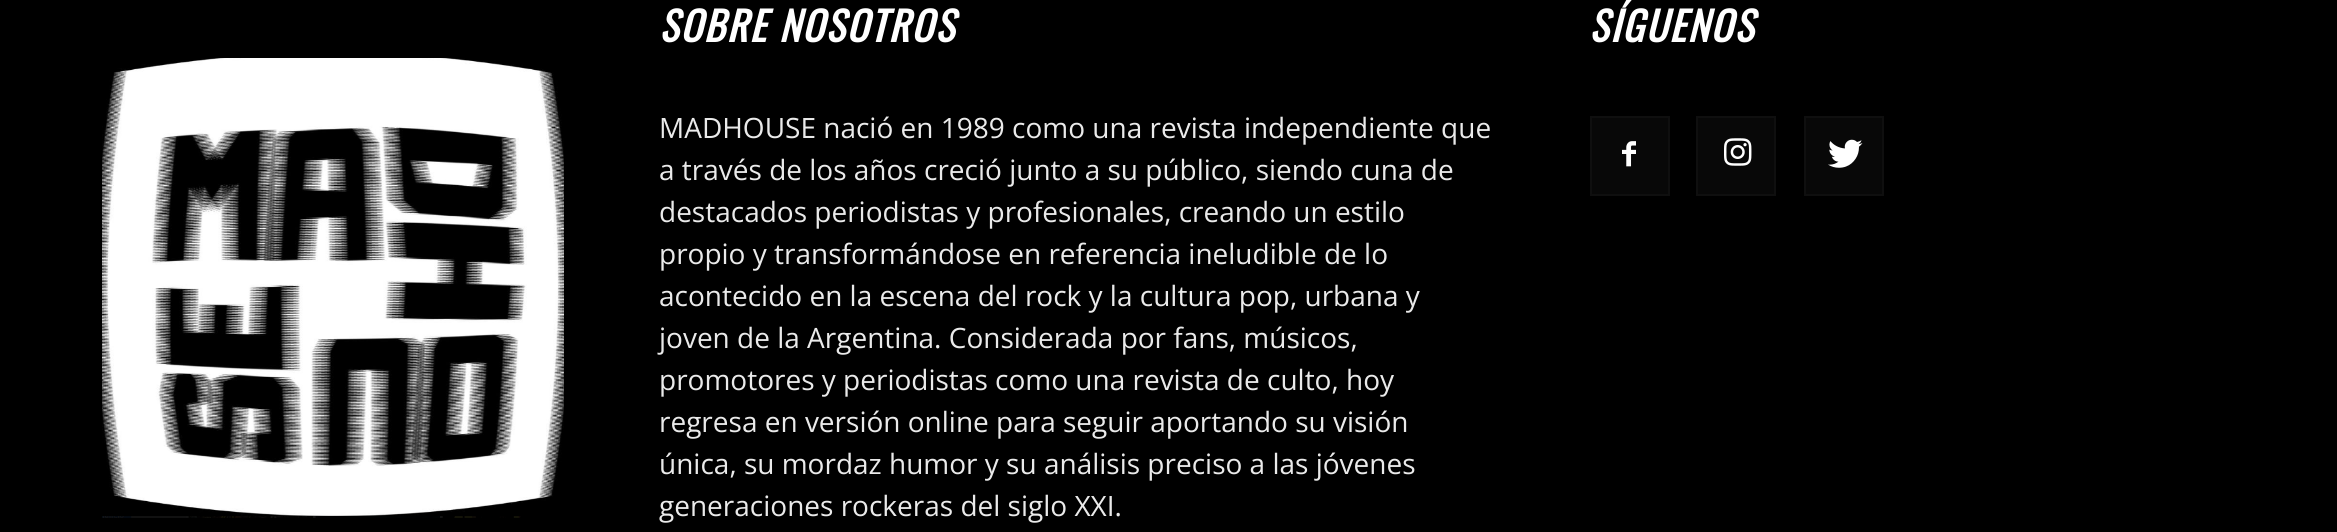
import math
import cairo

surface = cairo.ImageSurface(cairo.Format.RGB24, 2337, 532)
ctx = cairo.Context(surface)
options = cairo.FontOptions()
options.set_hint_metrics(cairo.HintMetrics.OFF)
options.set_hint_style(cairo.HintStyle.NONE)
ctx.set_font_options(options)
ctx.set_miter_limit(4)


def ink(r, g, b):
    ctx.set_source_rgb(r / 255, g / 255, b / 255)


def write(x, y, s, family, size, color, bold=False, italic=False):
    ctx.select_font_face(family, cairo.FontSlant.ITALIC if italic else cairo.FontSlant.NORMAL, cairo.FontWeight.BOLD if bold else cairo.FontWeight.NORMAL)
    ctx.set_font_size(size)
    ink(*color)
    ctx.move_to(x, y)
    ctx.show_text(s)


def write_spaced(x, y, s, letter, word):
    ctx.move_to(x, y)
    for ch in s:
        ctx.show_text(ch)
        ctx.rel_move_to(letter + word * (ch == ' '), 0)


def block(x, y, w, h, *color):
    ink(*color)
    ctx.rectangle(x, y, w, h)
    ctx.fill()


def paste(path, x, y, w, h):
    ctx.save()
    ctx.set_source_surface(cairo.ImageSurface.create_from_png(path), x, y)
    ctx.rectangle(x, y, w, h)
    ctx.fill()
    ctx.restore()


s1 = dict(family="Open Sans", size=28, color=(234, 234, 234))

ink(0, 0, 0)
ctx.paint()
paste("pic1.png", 102, 58, 462, 460)
ctx.select_font_face("Oswald", cairo.FontSlant.ITALIC, cairo.FontWeight.BOLD)
ctx.set_font_size(40)
ink(255, 255, 255)
write_spaced(659, 42, "SOBRE NOSOTROS", 2, 0)
write(659, 138, "MADHOUSE nació en 1989 como una revista independiente que", **s1)
write(659, 180, "a través de los años creció junto a su público, siendo cuna de", **s1)
write(659, 222, "destacados periodistas y profesionales, creando un estilo", **s1)
write(659, 264, "propio y transformándose en referencia ineludible de lo", **s1)
write(659, 306, "acontecido en la escena del rock y la cultura pop, urbana y", **s1)
write(659, 348, "joven de la Argentina. Considerada por fans, músicos,", **s1)
write(659, 390, "promotores y periodistas como una revista de culto, hoy", **s1)
write(659, 432, "regresa en versión online para seguir aportando su visión", **s1)
write(659, 474, "única, su mordaz humor y su análisis preciso a las jóvenes", **s1)
write(659, 516, "generaciones rockeras del siglo XXI.", **s1)
ctx.select_font_face("Oswald", cairo.FontSlant.ITALIC, cairo.FontWeight.BOLD)
ctx.set_font_size(40)
ink(255, 255, 255)
write_spaced(1589, 42, "SÍGUENOS", 2, 0)
block(1592, 118, 76, 76, 8, 8, 8)
paste("pic2.png", 1622, 141, 14, 26)
ctx.rectangle(1591, 117, 78, 78)
ink(15, 15, 15)
ctx.stroke()
block(1698, 118, 76, 76, 8, 8, 8)
paste("pic3.png", 1724, 138, 28, 28)
ctx.rectangle(1697, 117, 78, 78)
ink(15, 15, 15)
ctx.stroke()
block(1806, 118, 76, 76, 8, 8, 8)
paste("pic4.png", 1828, 139, 35, 29)
ctx.rectangle(1805, 117, 78, 78)
ink(15, 15, 15)
ctx.stroke()
surface.write_to_png("screenshot.png")
